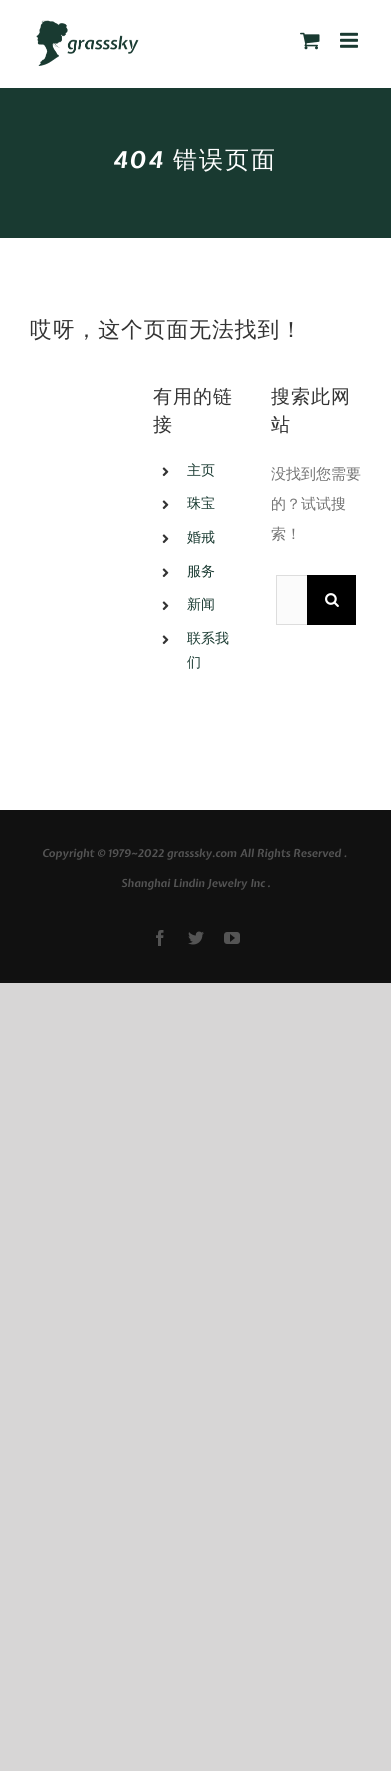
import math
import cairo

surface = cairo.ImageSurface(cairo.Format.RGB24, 391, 1771)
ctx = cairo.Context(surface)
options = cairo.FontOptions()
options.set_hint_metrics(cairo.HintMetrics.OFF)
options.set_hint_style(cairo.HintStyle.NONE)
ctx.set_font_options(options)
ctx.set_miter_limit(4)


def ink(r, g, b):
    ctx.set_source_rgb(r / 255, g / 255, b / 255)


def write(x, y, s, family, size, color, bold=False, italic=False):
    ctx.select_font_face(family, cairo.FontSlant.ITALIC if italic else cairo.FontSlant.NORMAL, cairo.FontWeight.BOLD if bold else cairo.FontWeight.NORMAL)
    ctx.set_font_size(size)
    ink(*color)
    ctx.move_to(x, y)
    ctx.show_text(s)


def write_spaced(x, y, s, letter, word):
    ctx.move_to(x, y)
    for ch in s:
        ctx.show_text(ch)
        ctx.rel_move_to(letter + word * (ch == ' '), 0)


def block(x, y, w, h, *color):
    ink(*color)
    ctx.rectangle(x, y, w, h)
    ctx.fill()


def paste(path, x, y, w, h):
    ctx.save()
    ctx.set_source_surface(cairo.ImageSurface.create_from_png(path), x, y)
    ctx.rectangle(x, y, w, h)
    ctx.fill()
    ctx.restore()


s1 = dict(family="WenQuanYi Zen Hei Medium", size=14, color=(25, 58, 49))
s2 = dict(family="WenQuanYi Zen Hei Medium", size=15, color=(116, 116, 116))
s3 = dict(family="Expletus Sans", size=11, color=(84, 84, 84), bold=True, italic=True)

ink(215, 214, 214)
ctx.paint()
block(0, 0, 391, 810, 255, 255, 255)
paste("pic1.png", 36, 20, 103, 46)
paste("pic2.png", 300, 32, 20, 18)
paste("pic3.png", 340, 32, 18, 16)
block(0, 88, 391, 150, 25, 58, 49)
ctx.select_font_face("Expletus Sans", cairo.FontSlant.ITALIC, cairo.FontWeight.BOLD)
ctx.set_font_size(24)
ink(255, 255, 255)
write_spaced(113, 168, "404", 2, 0)
ctx.select_font_face("WenQuanYi Zen Hei Medium")
write_spaced(173, 168, "错误页面", 2, 0)
ctx.set_font_size(21.75)
ink(51, 51, 51)
write_spaced(30, 337, "哎呀，这个页面无法找到！", 1, 0)
ctx.set_font_size(19)
write_spaced(153, 403, "有用的链", 1, 0)
write_spaced(153, 431, "接", 1, 0)
paste("pic4.png", 162, 467, 7, 10)
write(187, 475, "主页", **s1)
paste("pic4.png", 162, 500, 7, 10)
write(187, 508, "珠宝", **s1)
paste("pic4.png", 162, 534, 7, 10)
write(187, 542, "婚戒", **s1)
paste("pic4.png", 162, 568, 7, 10)
write(187, 576, "服务", **s1)
paste("pic4.png", 162, 601, 7, 10)
write(187, 609, "新闻", **s1)
paste("pic4.png", 162, 635, 7, 10)
write(187, 643, "联系我", **s1)
write(187, 667, "们", **s1)
ctx.set_font_size(19)
ink(51, 51, 51)
write_spaced(271, 403, "搜索此网", 1, 0)
write_spaced(271, 431, "站", 1, 0)
write(271, 479, "没找到您需要", **s2)
write(271, 509, "的？试试搜", **s2)
write(271, 539, "索！", **s2)
block(277, 576, 30, 48, 251, 251, 251)
block(276, 575, 31, 1, 221, 221, 221)
block(276, 624, 31, 1, 221, 221, 221)
block(276, 575, 1, 50, 221, 221, 221)
block(307, 575, 49, 50, 0, 0, 0)
paste("pic5.png", 325, 593, 14, 14)
block(0, 810, 391, 173, 17, 17, 17)
write(42, 857, "Copyright © 1979~2022 grasssky.com All Rights Reserved .", **s3)
write(121, 887, "Shanghai Lindin Jewelry Inc .", **s3)
paste("pic6.png", 156, 930, 8, 16)
paste("pic7.png", 188, 931, 16, 14)
paste("pic8.png", 224, 932, 16, 12)
surface.write_to_png("screenshot.png")
